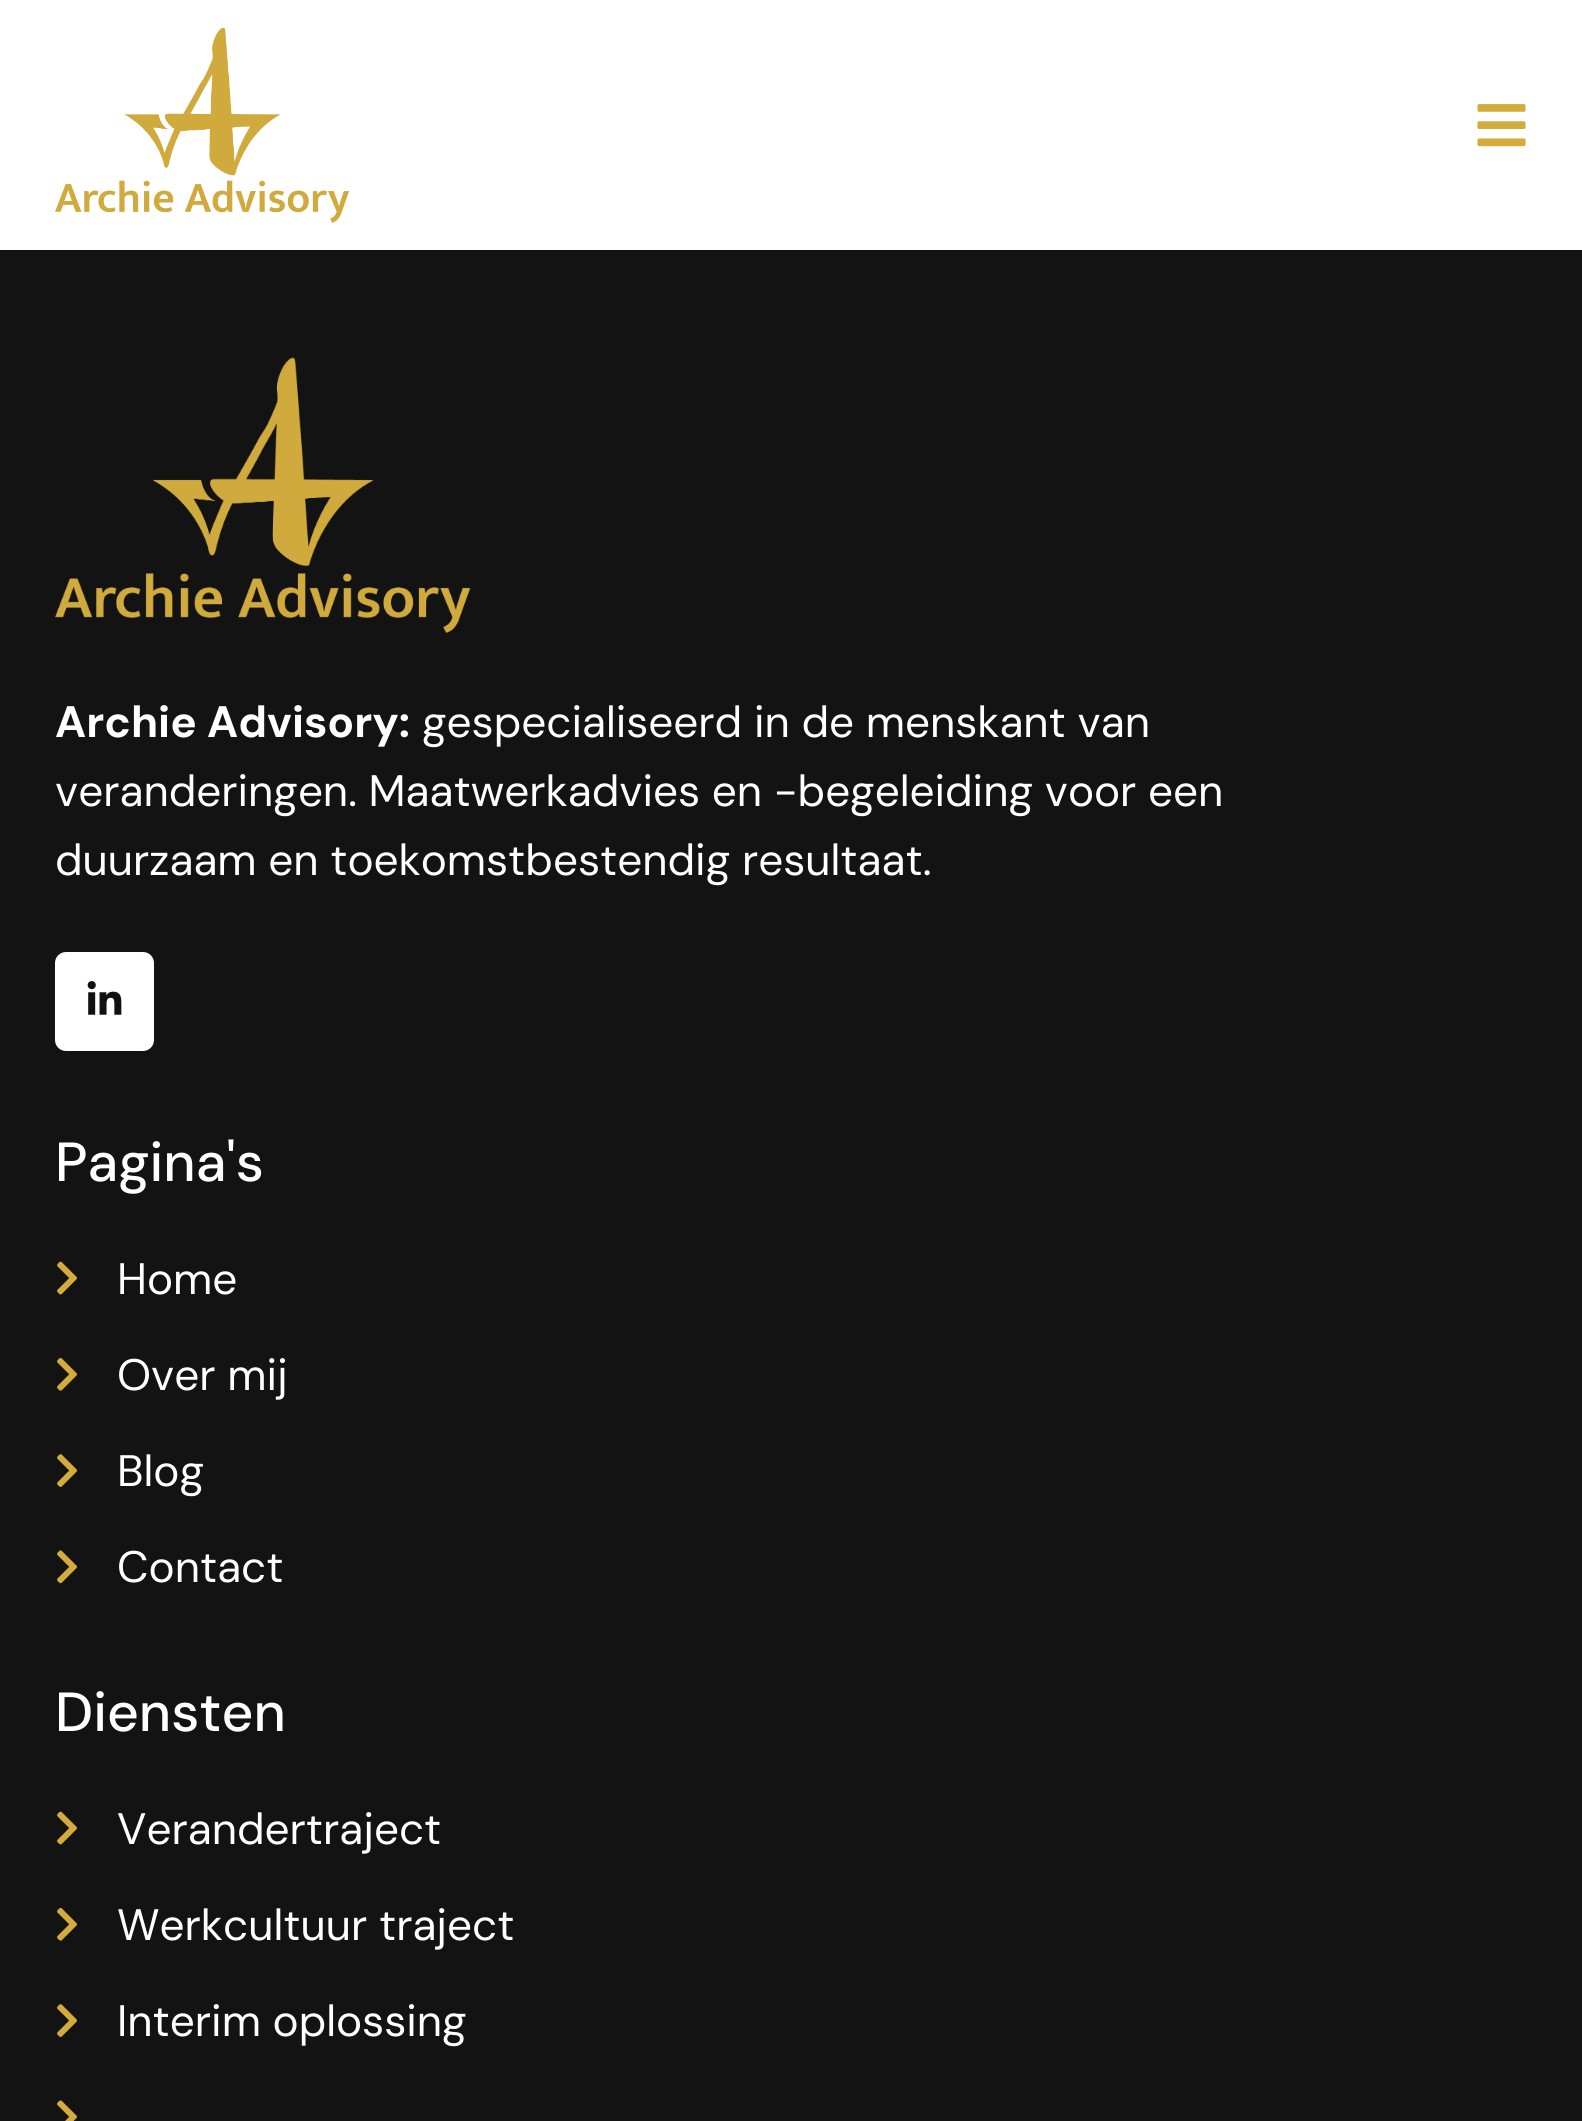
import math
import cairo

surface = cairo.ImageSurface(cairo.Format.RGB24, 1582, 2121)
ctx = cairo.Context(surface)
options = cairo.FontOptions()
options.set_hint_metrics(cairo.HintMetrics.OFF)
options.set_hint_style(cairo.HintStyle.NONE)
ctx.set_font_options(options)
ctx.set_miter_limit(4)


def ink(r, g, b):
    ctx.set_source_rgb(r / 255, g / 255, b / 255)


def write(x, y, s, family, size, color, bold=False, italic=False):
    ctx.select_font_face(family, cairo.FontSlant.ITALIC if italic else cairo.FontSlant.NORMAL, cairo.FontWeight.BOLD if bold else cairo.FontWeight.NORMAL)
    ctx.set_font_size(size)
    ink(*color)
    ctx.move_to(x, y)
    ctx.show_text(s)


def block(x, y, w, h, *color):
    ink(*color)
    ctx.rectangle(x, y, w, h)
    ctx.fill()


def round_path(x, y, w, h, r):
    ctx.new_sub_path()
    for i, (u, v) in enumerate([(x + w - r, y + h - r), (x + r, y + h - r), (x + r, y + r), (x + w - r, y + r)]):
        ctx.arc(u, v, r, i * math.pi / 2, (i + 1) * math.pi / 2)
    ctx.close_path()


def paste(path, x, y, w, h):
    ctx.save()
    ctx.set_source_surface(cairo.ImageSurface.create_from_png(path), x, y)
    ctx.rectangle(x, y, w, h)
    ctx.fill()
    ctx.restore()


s1 = dict(family="DM Sans", size=44, color=(255, 255, 255), bold=True)
s2 = dict(family="DM Sans", size=44, color=(255, 255, 255))
s3 = dict(family="DM Sans Medium", size=55, color=(255, 255, 255))

ink(19, 19, 19)
ctx.paint()
block(0, 0, 1582, 250, 255, 255, 255)
paste("pic1.png", 55, 28, 295, 195)
paste("pic2.png", 1477, 104, 49, 43)
paste("pic3.png", 55, 357, 416, 276)
write(55, 737, "Archie Advisory:", **s1)
write(422, 737, "gespecialiseerd in de menskant van", **s2)
write(55, 806, "veranderingen. Maatwerkadvies en -begeleiding voor een", **s2)
write(55, 875, "duurzaam en toekomstbestendig resultaat.", **s2)
round_path(55, 952, 99, 99, 11)
ctx.fill()
paste("pic4.png", 87, 981, 35, 34)
write(55, 1181, "Pagina's", **s3)
paste("pic5.png", 57, 1261, 20, 34)
write(117, 1294, "Home", **s2)
paste("pic6.png", 57, 1357, 20, 34)
write(117, 1390, "Over mij", **s2)
paste("pic7.png", 57, 1454, 20, 33)
write(117, 1486, "Blog", **s2)
paste("pic8.png", 57, 1550, 20, 34)
write(117, 1582, "Contact", **s2)
write(55, 1731, "Diensten", **s3)
paste("pic5.png", 57, 1811, 20, 34)
write(117, 1844, "Verandertraject", **s2)
paste("pic6.png", 57, 1907, 20, 34)
write(117, 1940, "Werkcultuur traject", **s2)
paste("pic7.png", 57, 2004, 20, 33)
write(117, 2036, "Interim oplossing", **s2)
paste("pic9.png", 57, 2100, 20, 21)
surface.write_to_png("screenshot.png")
